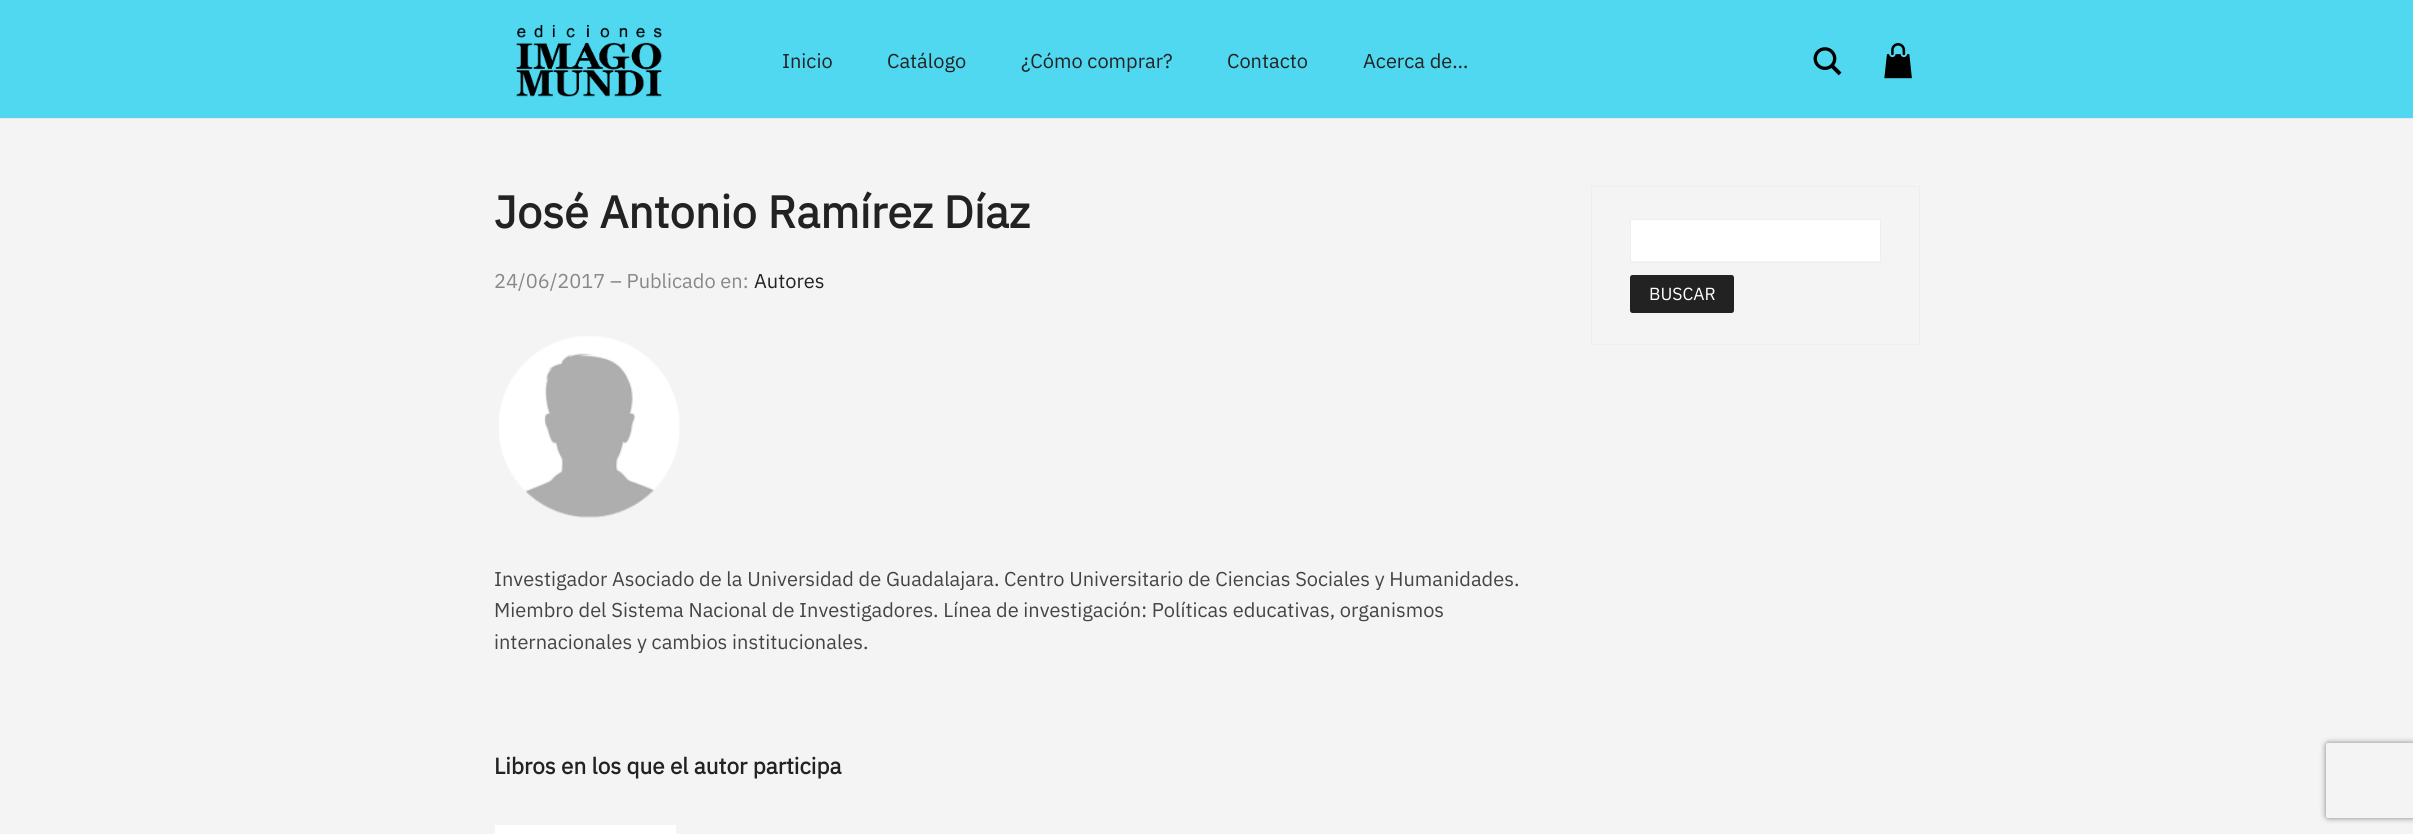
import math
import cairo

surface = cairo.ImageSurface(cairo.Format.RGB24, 2413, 834)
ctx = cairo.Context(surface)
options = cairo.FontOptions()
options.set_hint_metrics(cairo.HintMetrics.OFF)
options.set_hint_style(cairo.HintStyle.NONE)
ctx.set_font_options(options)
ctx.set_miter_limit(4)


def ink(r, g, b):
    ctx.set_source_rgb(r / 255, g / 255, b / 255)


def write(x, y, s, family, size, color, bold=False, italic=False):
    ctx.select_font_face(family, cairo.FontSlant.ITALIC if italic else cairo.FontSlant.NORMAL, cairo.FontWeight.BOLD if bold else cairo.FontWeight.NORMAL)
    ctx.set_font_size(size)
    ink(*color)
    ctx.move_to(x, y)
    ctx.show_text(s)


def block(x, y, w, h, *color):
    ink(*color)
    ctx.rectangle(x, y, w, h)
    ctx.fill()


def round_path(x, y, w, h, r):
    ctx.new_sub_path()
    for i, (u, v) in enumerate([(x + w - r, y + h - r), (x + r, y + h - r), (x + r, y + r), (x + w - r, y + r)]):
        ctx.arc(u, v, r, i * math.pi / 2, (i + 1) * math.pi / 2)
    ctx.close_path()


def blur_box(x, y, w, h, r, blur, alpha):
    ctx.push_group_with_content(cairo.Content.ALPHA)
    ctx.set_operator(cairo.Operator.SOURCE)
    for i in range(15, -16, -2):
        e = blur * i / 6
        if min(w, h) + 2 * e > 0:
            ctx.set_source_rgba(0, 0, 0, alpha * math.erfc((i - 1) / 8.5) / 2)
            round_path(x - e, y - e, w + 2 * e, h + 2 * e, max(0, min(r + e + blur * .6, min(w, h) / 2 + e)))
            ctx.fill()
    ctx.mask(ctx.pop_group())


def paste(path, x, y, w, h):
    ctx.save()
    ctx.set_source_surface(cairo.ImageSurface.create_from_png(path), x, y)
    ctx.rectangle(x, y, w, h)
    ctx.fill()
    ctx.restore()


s1 = dict(family="IBM Plex Sans", size=20, color=(34, 34, 34))
s2 = dict(family="IBM Plex Sans", size=45, color=(34, 34, 34), bold=True)
s3 = dict(family="IBM Plex Sans", size=20, color=(136, 136, 136))
s4 = dict(family="IBM Plex Sans", size=20, color=(68, 68, 68))
s5 = dict(family="IBM Plex Sans", size=22.5, color=(34, 34, 34), bold=True)
s6 = dict(family="IBM Plex Sans", size=17.5, color=(255, 255, 255))

ink(244, 244, 244)
ctx.paint()
ink(232, 232, 232)
ctx.new_path()
ctx.move_to(0, 118)
ctx.line_to(0, 119)
ctx.line_to(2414, 119)
ctx.line_to(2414, 1)
ctx.line_to(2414, 118)
ctx.close_path()
ctx.fill()
block(0, 0, 2413, 118, 79, 216, 240)
paste("pic1.png", 516, 25, 146, 72)
write(782, 68, "Inicio", **s1)
write(887, 68, "Catálogo", **s1)
write(1021, 68, "¿Cómo comprar?", **s1)
write(1227, 68, "Contacto", **s1)
write(1363, 68, "Acerca de…", **s1)
paste("pic2.png", 1813, 47, 29, 29)
paste("pic3.png", 1884, 43, 28, 36)
write(494, 228, "José Antonio Ramírez Díaz", **s2)
write(494, 288, "24/06/2017 – Publicado en:", **s3)
write(754, 288, "Autores", **s1)
paste("pic4.png", 499, 336, 181, 182)
write(494, 586, "Investigador Asociado de la Universidad de Guadalajara. Centro Universitario de Ciencias Sociales y Humanidades.", **s4)
write(494, 617, "Miembro del Sistema Nacional de Investigadores. Línea de investigación: Políticas educativas, organismos", **s4)
write(494, 649, "internacionales y cambios institucionales.", **s4)
write(494, 774, "Libros en los que el autor participa", **s5)
block(495, 825, 181, 9, 255, 255, 255)
ctx.rectangle(1591.5, 186.5, 328, 158)
ink(238, 238, 238)
ctx.set_line_width(1)
ctx.stroke()
block(1631, 220, 249, 41, 255, 255, 255)
ctx.rectangle(1630.5, 219.5, 250, 43)
ink(238, 238, 238)
ctx.stroke()
ink(34, 34, 34)
round_path(1630, 275, 104, 38, 2.5)
ctx.fill()
write(1649, 300, "BUSCAR", **s6)
ctx.save()
ctx.set_fill_rule(cairo.FillRule.EVEN_ODD)
ctx.new_path()
ctx.move_to(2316, 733)
ctx.line_to(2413, 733)
ctx.line_to(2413, 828)
ctx.line_to(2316, 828)
ctx.close_path()
ctx.move_to(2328.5, 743)
ctx.line_to(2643.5, 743)
ctx.curve_to(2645, 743, 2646, 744, 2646, 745.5)
ctx.line_to(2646, 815.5)
ctx.curve_to(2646, 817, 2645, 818, 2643.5, 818)
ctx.line_to(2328.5, 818)
ctx.curve_to(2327, 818, 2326, 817, 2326, 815.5)
ctx.line_to(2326, 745.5)
ctx.curve_to(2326, 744, 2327, 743, 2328.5, 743)
ctx.close_path()
ctx.clip()
ink(128, 128, 128)
blur_box(2326, 743, 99, 75, 2.5, 3, 1)
ctx.restore()
surface.write_to_png("screenshot.png")
